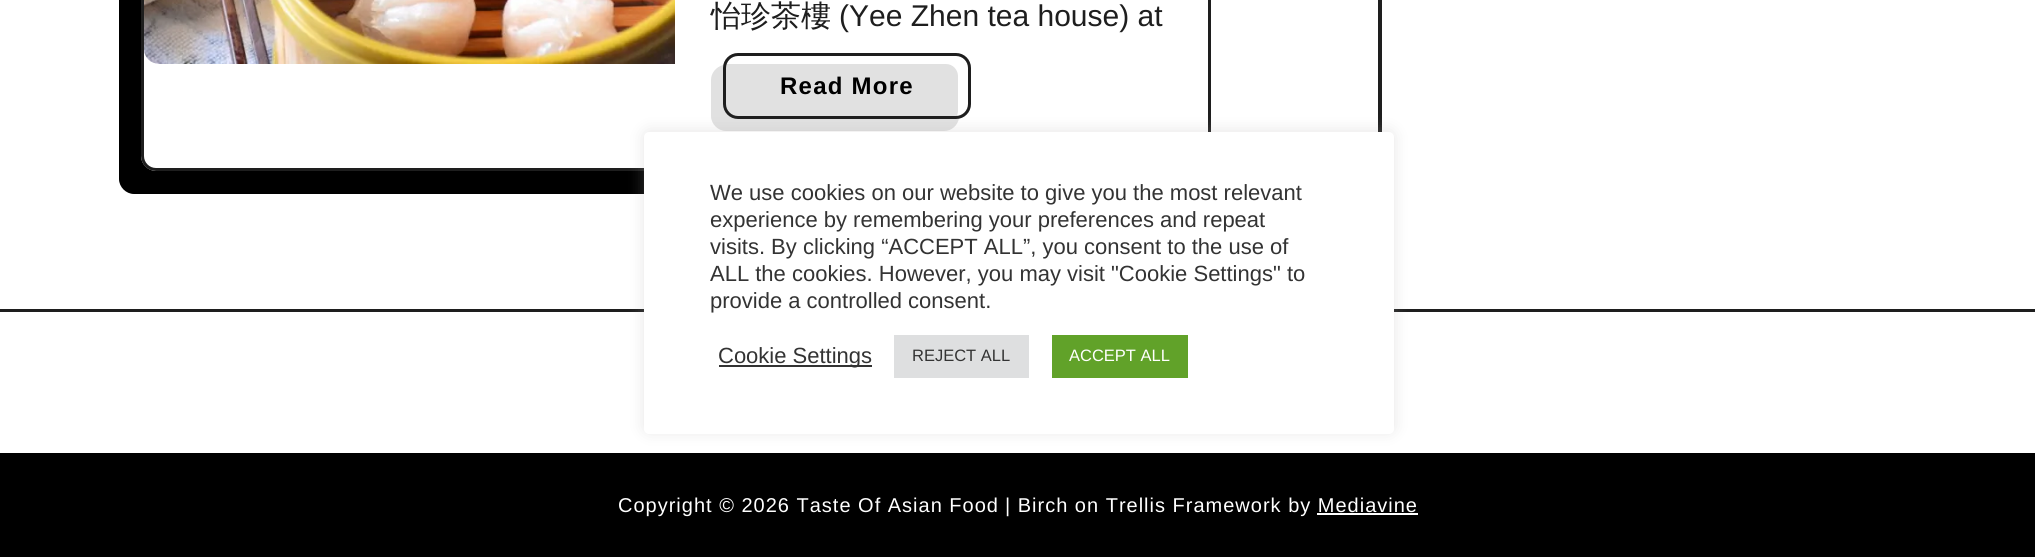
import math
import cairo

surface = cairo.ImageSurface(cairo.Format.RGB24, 2035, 557)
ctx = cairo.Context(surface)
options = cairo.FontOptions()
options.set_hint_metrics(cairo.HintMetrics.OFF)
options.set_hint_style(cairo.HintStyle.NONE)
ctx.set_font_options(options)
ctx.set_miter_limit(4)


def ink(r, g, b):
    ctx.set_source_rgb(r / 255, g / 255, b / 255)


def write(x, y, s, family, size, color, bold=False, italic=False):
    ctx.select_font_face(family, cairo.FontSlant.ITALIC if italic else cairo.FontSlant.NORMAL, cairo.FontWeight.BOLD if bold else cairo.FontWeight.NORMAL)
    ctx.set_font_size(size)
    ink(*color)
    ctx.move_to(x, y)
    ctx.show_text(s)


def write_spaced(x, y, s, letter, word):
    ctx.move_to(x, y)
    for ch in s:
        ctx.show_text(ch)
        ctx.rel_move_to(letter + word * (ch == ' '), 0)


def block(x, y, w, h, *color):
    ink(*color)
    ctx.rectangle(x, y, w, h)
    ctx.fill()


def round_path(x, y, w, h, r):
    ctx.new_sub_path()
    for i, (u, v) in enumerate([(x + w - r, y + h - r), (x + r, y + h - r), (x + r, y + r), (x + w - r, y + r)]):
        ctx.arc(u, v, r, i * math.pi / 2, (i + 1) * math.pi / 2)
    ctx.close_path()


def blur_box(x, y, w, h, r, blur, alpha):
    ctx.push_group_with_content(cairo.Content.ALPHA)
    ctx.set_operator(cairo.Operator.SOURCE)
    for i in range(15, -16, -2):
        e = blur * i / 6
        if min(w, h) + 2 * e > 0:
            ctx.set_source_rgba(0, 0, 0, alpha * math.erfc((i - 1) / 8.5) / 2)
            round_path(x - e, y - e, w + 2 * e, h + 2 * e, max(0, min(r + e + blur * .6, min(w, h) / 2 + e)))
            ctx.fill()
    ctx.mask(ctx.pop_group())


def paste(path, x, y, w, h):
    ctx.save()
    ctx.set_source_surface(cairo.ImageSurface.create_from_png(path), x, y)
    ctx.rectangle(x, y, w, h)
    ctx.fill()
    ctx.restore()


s1 = dict(family="WenQuanYi Zen Hei Medium", size=30, color=(30, 30, 30))
s2 = dict(family="Liberation Sans", size=30, color=(30, 30, 30))
s3 = dict(family="Liberation Sans", size=22, color=(51, 51, 51))
s4 = dict(family="Liberation Sans", size=16.5, color=(51, 51, 51))
s5 = dict(family="Liberation Sans", size=16.5, color=(255, 255, 255))

ink(255, 255, 255)
ctx.paint()
ink(0, 0, 0)
ctx.new_path()
ctx.move_to(134, -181)
ctx.curve_to(126, -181, 119, -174, 119, -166)
ctx.line_to(119, 179)
ctx.curve_to(119, 187, 126, 194, 134, 194)
ctx.line_to(1173, 194)
ctx.curve_to(1181, 194, 1188, 187, 1188, 179)
ctx.line_to(1188, 171)
ctx.line_to(156, 171)
ctx.curve_to(148, 171, 141, 164, 141, 156)
ctx.line_to(141, -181)
ctx.close_path()
ctx.fill()
round_path(142.5, -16.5, 1067, 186, 13.5)
ink(30, 30, 30)
ctx.set_line_width(3)
ctx.stroke()
paste("pic1.png", 144, 0, 531, 64)
write(711, 26, "怡珍茶樓", **s1)
write(839, 26, "(Yee Zhen tea house) at", **s2)
ink(225, 225, 225)
ctx.new_path()
ctx.move_to(723, 65)
ctx.curve_to(716, 67, 711, 73, 711, 80)
ctx.line_to(711, 116)
ctx.curve_to(711, 124, 718, 131, 726, 131)
ctx.line_to(944, 131)
ctx.curve_to(952, 131, 958, 125, 959, 118)
ctx.line_to(738, 118)
ctx.curve_to(731, 118, 725, 113, 723, 107)
ctx.close_path()
ctx.fill()
round_path(723, 53, 248, 66, 15)
ctx.fill()
ink(255, 255, 255)
ctx.new_path()
ctx.move_to(729, 64)
ctx.line_to(946, 64)
ctx.curve_to(953, 64, 958, 70, 958, 76)
ctx.line_to(958, 112)
ctx.line_to(957, 116)
ctx.curve_to(963, 115, 968, 110, 968, 104)
ctx.line_to(968, 68)
ctx.curve_to(968, 61, 963, 56, 956, 56)
ctx.line_to(738, 56)
ctx.curve_to(733, 56, 728, 59, 727, 64)
ctx.close_path()
ctx.fill()
round_path(724.5, 54.5, 245, 63, 13.5)
ink(30, 30, 30)
ctx.stroke()
ctx.select_font_face("Liberation Sans", cairo.FontSlant.NORMAL, cairo.FontWeight.BOLD)
ctx.set_font_size(24)
ink(0, 0, 0)
write_spaced(780, 94, "Read More", 1.25, 0)
ink(30, 30, 30)
ctx.new_path()
ctx.move_to(1394, -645)
ctx.curve_to(1386, -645, 1380, -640, 1378, -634)
ctx.line_to(1378, 262)
ctx.curve_to(1380, 268, 1386, 273, 1394, 273)
ctx.curve_to(1387, 273, 1382, 266, 1382, 258)
ctx.line_to(1382, -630)
ctx.curve_to(1382, -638, 1387, -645, 1394, -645)
ctx.close_path()
ctx.fill()
block(0, 309, 2035, 3, 30, 30, 30)
block(0, 453, 2035, 104, 0, 0, 0)
ink(172, 171, 171)
blur_box(644, 131, 750, 301, 5, 7.5, 0.3)
ink(255, 255, 255)
round_path(644, 132, 750, 302, 5)
ctx.fill()
write(710, 200, "We use cookies on our website to give you the most relevant", **s3)
write(710, 227, "experience by remembering your preferences and repeat", **s3)
write(710, 254, "visits. By clicking “ACCEPT ALL”, you consent to the use of", **s3)
write(710, 281, "ALL the cookies. However, you may visit \"Cookie Settings\" to", **s3)
write(710, 308, "provide a controlled consent.", **s3)
block(719, 365, 153, 2, 51, 51, 51)
write(718, 363, "Cookie Settings", **s3)
block(894, 335, 135, 43, 222, 223, 224)
write(912, 361, "REJECT ALL", **s4)
block(1052, 335, 136, 43, 97, 162, 41)
write(1069, 361, "ACCEPT ALL", **s5)
ctx.set_font_size(20)
write_spaced(618, 512, "Copyright © 2026 Taste Of Asian Food", 1, 0)
write_spaced(1005, 512, "| Birch on Trellis Framework by Mediavine", 1, 0)
block(1317, 513, 101, 2, 255, 255, 255)
surface.write_to_png("screenshot.png")
